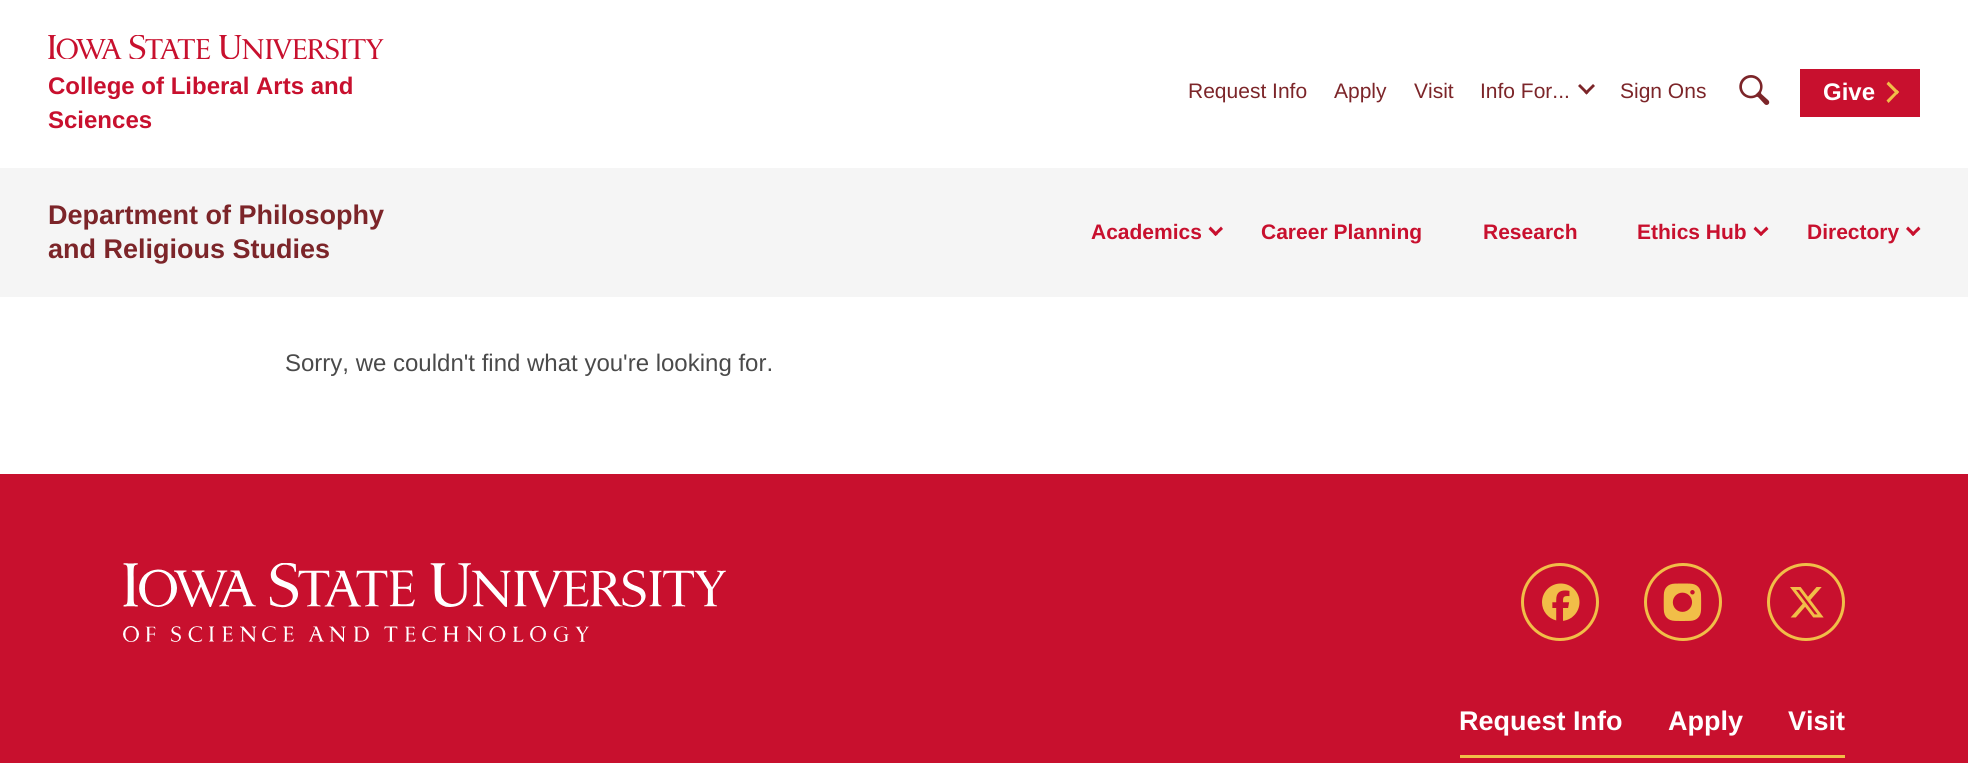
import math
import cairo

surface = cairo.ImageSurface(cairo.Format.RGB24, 1968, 763)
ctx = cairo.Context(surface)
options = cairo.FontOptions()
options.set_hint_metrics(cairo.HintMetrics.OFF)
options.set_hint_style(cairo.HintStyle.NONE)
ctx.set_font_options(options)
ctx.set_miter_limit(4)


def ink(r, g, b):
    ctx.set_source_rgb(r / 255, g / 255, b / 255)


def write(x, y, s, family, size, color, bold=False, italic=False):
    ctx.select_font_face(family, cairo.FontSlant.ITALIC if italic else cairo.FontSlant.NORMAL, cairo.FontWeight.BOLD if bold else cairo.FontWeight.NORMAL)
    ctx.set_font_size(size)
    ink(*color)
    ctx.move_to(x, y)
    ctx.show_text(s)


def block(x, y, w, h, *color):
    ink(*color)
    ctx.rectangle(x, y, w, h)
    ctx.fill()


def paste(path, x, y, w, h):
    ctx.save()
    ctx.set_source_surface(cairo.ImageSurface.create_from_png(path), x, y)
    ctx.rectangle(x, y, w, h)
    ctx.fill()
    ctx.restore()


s1 = dict(family="Liberation Sans", size=24, color=(200, 16, 46), bold=True)
s2 = dict(family="Liberation Sans", size=21, color=(124, 37, 41))
s3 = dict(family="Liberation Sans", size=24, color=(255, 255, 255), bold=True)
s4 = dict(family="Liberation Sans", size=27, color=(124, 37, 41), bold=True)
s5 = dict(family="Liberation Sans", size=21, color=(200, 16, 46), bold=True)
s6 = dict(family="Liberation Sans", size=24, color=(74, 74, 74))
s7 = dict(family="Liberation Sans", size=27, color=(255, 255, 255), bold=True)

ink(255, 255, 255)
ctx.paint()
paste("pic1.png", 48, 35, 336, 24)
write(48, 94, "College of Liberal Arts and", **s1)
write(48, 128, "Sciences", **s1)
write(1188, 98, "Request Info", **s2)
write(1334, 98, "Apply", **s2)
write(1414, 98, "Visit", **s2)
write(1480, 98, "Info For...", **s2)
ctx.new_path()
ctx.move_to(1593, 84)
ctx.line_to(1595, 86)
ctx.line_to(1586.5, 94.5)
ctx.line_to(1584.5, 92.5)
ctx.close_path()
ctx.fill()
ctx.new_path()
ctx.move_to(1580, 84)
ctx.line_to(1588.5, 92.5)
ctx.line_to(1586.5, 94.5)
ctx.line_to(1578, 86)
ctx.close_path()
ctx.fill()
write(1620, 98, "Sign Ons", **s2)
paste("pic2.png", 1739, 75, 31, 30)
block(1800, 69, 120, 48, 200, 16, 46)
write(1823, 100, "Give", **s3)
ink(241, 190, 72)
ctx.new_path()
ctx.move_to(1886.5, 84)
ctx.line_to(1888.5, 81.5)
ctx.line_to(1899, 92)
ctx.line_to(1897, 94.5)
ctx.close_path()
ctx.fill()
ctx.new_path()
ctx.move_to(1886.5, 100.5)
ctx.line_to(1897, 90)
ctx.line_to(1899, 92)
ctx.line_to(1888.5, 103)
ctx.close_path()
ctx.fill()
block(0, 168, 1968, 129, 245, 245, 245)
write(48, 224, "Department of Philosophy", **s4)
write(48, 258, "and Religious Studies", **s4)
write(1091, 239, "Academics", **s5)
ctx.new_path()
ctx.move_to(1221, 226.5)
ctx.line_to(1223, 229)
ctx.line_to(1215.5, 236)
ctx.line_to(1213.5, 234)
ctx.close_path()
ctx.fill()
ctx.new_path()
ctx.move_to(1210.5, 226.5)
ctx.line_to(1218, 234)
ctx.line_to(1215.5, 236)
ctx.line_to(1208.5, 229)
ctx.close_path()
ctx.fill()
write(1261, 239, "Career Planning", **s5)
write(1483, 239, "Research", **s5)
write(1637, 239, "Ethics Hub", **s5)
ctx.new_path()
ctx.move_to(1766.5, 226.5)
ctx.line_to(1768.5, 229)
ctx.line_to(1761, 236)
ctx.line_to(1759, 234)
ctx.close_path()
ctx.fill()
ctx.new_path()
ctx.move_to(1755.5, 226.5)
ctx.line_to(1763, 234)
ctx.line_to(1761, 236)
ctx.line_to(1753.5, 229)
ctx.close_path()
ctx.fill()
write(1807, 239, "Directory", **s5)
ctx.new_path()
ctx.move_to(1918.5, 226.5)
ctx.line_to(1920.5, 229)
ctx.line_to(1913, 236)
ctx.line_to(1911, 234)
ctx.close_path()
ctx.fill()
ctx.new_path()
ctx.move_to(1908, 226.5)
ctx.line_to(1915.5, 234)
ctx.line_to(1913, 236)
ctx.line_to(1906, 229)
ctx.close_path()
ctx.fill()
write(285, 371, "Sorry, we couldn't find what you're looking for.", **s6)
block(0, 474, 1968, 289, 200, 16, 46)
paste("pic3.png", 123, 563, 603, 79)
ctx.arc(1560, 602, 37.5, 0, 2 * math.pi)
ink(241, 190, 72)
ctx.set_line_width(3)
ctx.stroke()
paste("pic4.png", 1542, 583, 38, 38)
ctx.arc(1683, 602, 37.5, 0, 2 * math.pi)
ctx.stroke()
paste("pic5.png", 1663, 583, 39, 38)
ctx.arc(1806, 602, 37.5, 0, 2 * math.pi)
ctx.stroke()
paste("pic6.png", 1790, 587, 34, 31)
block(1460, 755, 385, 3, 241, 190, 72)
write(1459, 730, "Request Info", **s7)
write(1668, 730, "Apply", **s7)
write(1788, 730, "Visit", **s7)
surface.write_to_png("screenshot.png")
